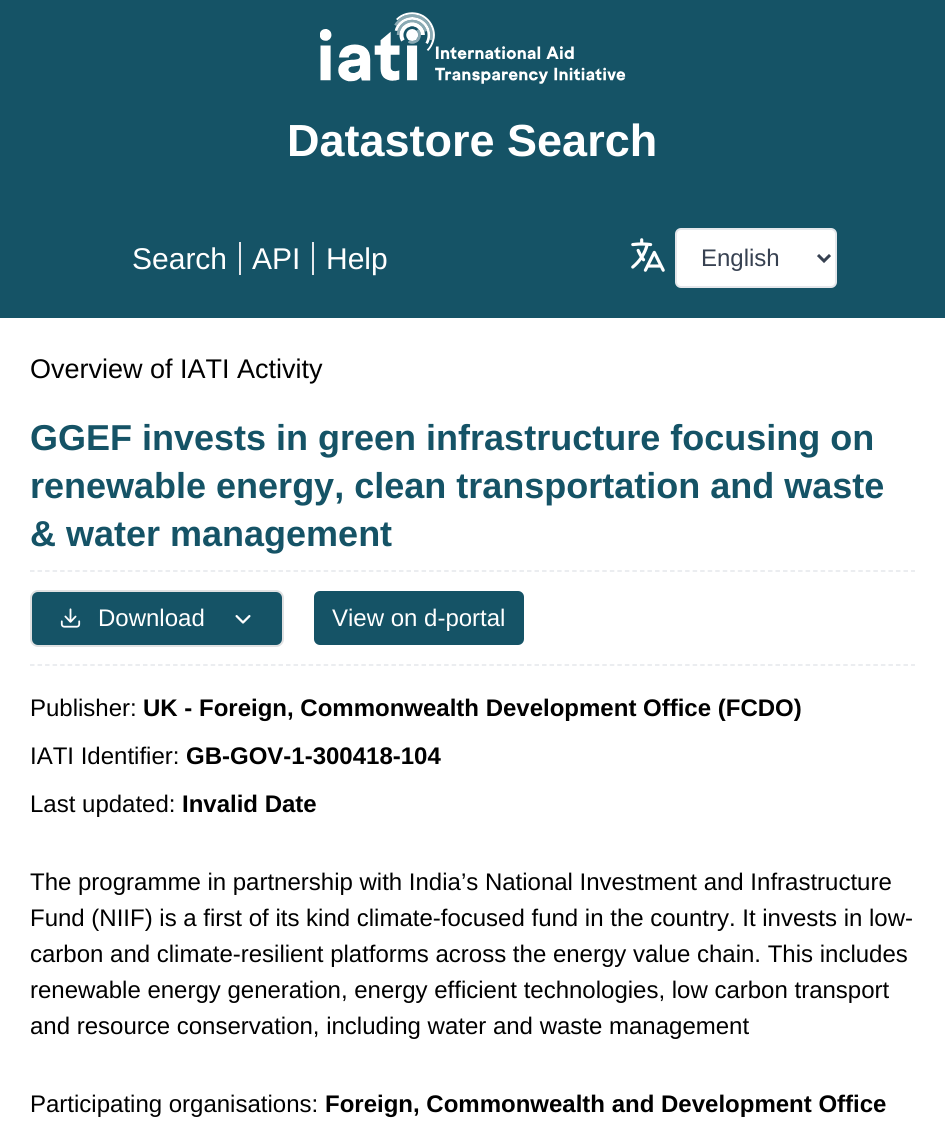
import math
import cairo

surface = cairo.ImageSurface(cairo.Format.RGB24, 945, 1138)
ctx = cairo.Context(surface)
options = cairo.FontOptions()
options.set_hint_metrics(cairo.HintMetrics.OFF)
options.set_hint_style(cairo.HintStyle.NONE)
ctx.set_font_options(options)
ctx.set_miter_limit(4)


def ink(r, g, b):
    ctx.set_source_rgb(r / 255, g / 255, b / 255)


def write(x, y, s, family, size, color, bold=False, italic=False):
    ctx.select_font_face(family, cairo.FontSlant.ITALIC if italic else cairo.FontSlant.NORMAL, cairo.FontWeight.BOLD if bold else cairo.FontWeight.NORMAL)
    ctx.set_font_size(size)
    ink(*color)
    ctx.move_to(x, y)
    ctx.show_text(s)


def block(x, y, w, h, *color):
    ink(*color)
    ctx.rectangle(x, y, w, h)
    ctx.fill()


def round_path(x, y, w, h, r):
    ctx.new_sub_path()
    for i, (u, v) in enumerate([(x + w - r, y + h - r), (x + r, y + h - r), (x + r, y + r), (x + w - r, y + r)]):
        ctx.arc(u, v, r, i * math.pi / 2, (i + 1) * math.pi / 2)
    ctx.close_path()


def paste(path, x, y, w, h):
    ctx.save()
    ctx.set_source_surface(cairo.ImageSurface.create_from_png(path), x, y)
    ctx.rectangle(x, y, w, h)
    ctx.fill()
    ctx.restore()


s1 = dict(family="Liberation Sans", size=45, color=(255, 255, 255), bold=True)
s2 = dict(family="Liberation Sans", size=30, color=(255, 255, 255))
s3 = dict(family="Liberation Sans", size=24, color=(55, 65, 81))
s4 = dict(family="Liberation Sans", size=27, color=(0, 0, 0))
s5 = dict(family="Liberation Sans", size=36, color=(21, 83, 102), bold=True)
s6 = dict(family="Liberation Sans", size=24, color=(255, 255, 255))
s7 = dict(family="Liberation Sans", size=24, color=(0, 0, 0))
s8 = dict(family="Liberation Sans", size=24, color=(0, 0, 0), bold=True)

ink(255, 255, 255)
ctx.paint()
block(0, 0, 945, 318, 21, 83, 102)
paste("pic1.png", 320, 12, 306, 72)
write(287, 156, "Datastore Search", **s1)
write(132, 269, "Search", **s2)
write(252, 269, "API", **s2)
block(239, 242, 2, 33, 229, 231, 235)
write(326, 269, "Help", **s2)
block(312, 242, 2, 33, 229, 231, 235)
paste("pic2.png", 631, 238, 34, 34)
ink(255, 255, 255)
round_path(676, 229, 160, 58, 5)
ctx.fill_preserve()
ink(229, 231, 235)
ctx.stroke()
ctx.new_path()
ctx.move_to(818, 255)
ctx.line_to(824, 261)
ctx.line_to(830, 255)
ink(55, 65, 81)
ctx.set_line_width(3)
ctx.stroke()
write(701, 266, "English", **s3)
write(30, 378, "Overview of IATI Activity", **s4)
ctx.new_path()
ctx.move_to(30, 571)
ctx.line_to(915, 571)
ink(229, 231, 235)
ctx.set_line_width(1.5)
ctx.set_dash([4.5, 3.03])
ctx.stroke()
write(30, 450, "GGEF invests in green infrastructure focusing on", **s5)
write(30, 498, "renewable energy, clean transportation and waste", **s5)
write(30, 546, "& water management", **s5)
ctx.new_path()
ctx.move_to(30, 665)
ctx.line_to(915, 665)
ink(229, 231, 235)
ctx.stroke()
ink(21, 83, 102)
round_path(31, 591, 252, 55, 7)
ctx.fill_preserve()
ink(224, 225, 226)
ctx.set_line_width(2)
ctx.set_dash([])
ctx.stroke()
paste("pic3.png", 60, 608, 21, 20)
write(98, 626, "Download", **s6)
paste("pic4.png", 235, 615, 16, 9)
ink(21, 83, 102)
round_path(314, 591, 210, 54, 6)
ctx.fill()
write(332, 626, "View on d-portal", **s6)
write(30, 716, "Publisher:", **s7)
write(143, 716, "UK - Foreign, Commonwealth Development Office (FCDO)", **s8)
write(30, 764, "IATI Identifier:", **s7)
write(186, 764, "GB-GOV-1-300418-104", **s8)
write(30, 812, "Last updated:", **s7)
write(182, 812, "Invalid Date", **s8)
write(30, 890, "The programme in partnership with India’s National Investment and Infrastructure", **s7)
write(30, 926, "Fund (NIIF) is a first of its kind climate-focused fund in the country. It invests in low-", **s7)
write(30, 962, "carbon and climate-resilient platforms across the energy value chain. This includes", **s7)
write(30, 998, "renewable energy generation, energy efficient technologies, low carbon transport", **s7)
write(30, 1034, "and resource conservation, including water and waste management", **s7)
write(30, 1112, "Participating organisations:", **s7)
write(325, 1112, "Foreign, Commonwealth and Development Office", **s8)
surface.write_to_png("screenshot.png")
